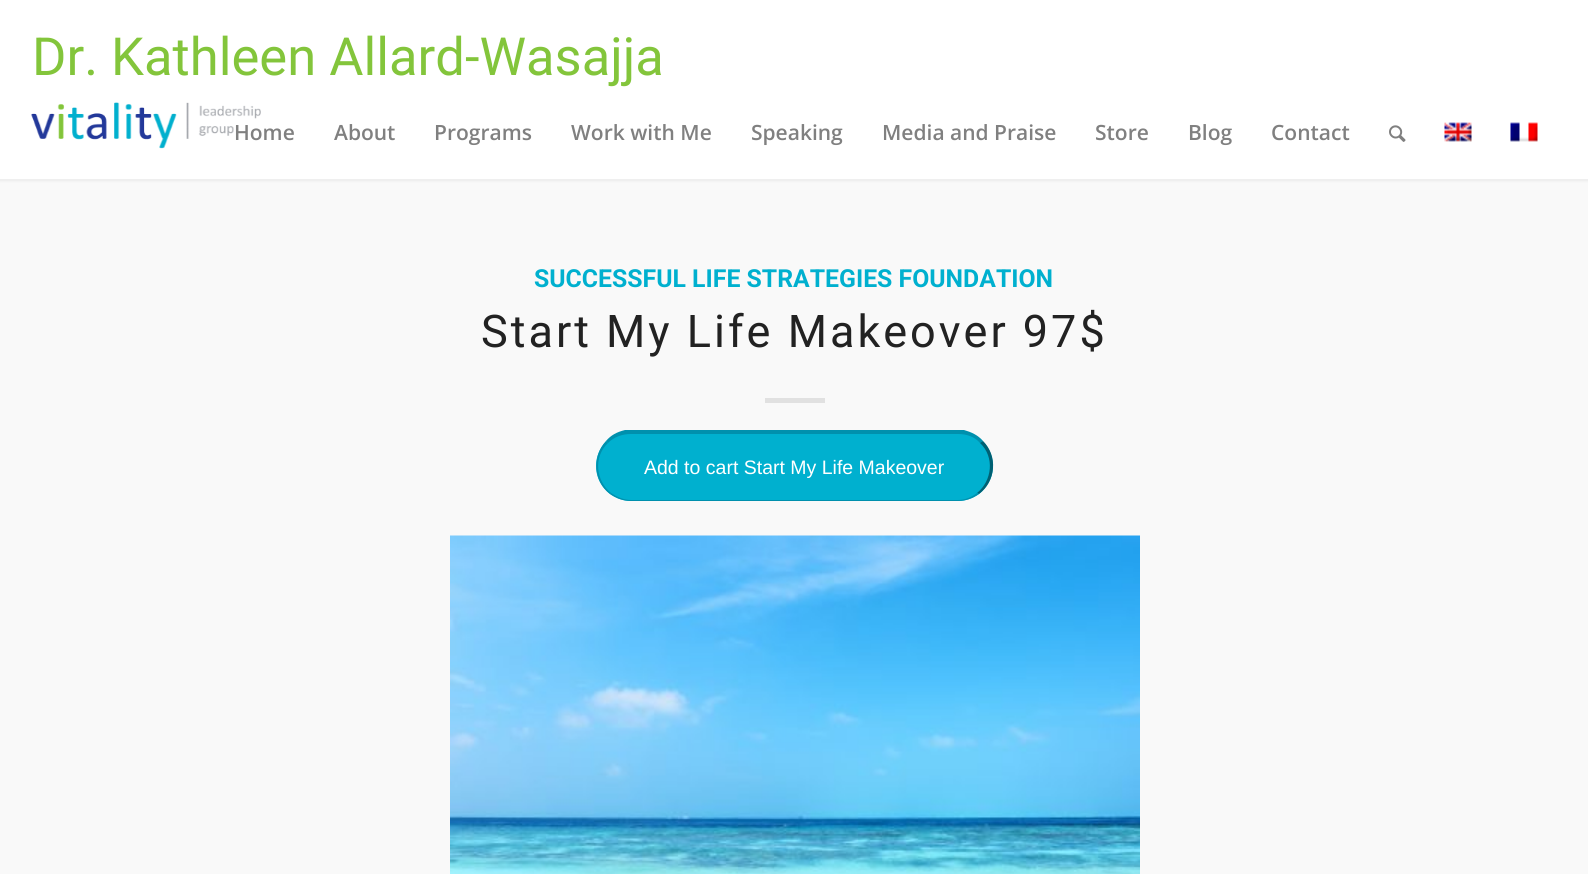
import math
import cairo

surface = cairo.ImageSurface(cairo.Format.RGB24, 1588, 874)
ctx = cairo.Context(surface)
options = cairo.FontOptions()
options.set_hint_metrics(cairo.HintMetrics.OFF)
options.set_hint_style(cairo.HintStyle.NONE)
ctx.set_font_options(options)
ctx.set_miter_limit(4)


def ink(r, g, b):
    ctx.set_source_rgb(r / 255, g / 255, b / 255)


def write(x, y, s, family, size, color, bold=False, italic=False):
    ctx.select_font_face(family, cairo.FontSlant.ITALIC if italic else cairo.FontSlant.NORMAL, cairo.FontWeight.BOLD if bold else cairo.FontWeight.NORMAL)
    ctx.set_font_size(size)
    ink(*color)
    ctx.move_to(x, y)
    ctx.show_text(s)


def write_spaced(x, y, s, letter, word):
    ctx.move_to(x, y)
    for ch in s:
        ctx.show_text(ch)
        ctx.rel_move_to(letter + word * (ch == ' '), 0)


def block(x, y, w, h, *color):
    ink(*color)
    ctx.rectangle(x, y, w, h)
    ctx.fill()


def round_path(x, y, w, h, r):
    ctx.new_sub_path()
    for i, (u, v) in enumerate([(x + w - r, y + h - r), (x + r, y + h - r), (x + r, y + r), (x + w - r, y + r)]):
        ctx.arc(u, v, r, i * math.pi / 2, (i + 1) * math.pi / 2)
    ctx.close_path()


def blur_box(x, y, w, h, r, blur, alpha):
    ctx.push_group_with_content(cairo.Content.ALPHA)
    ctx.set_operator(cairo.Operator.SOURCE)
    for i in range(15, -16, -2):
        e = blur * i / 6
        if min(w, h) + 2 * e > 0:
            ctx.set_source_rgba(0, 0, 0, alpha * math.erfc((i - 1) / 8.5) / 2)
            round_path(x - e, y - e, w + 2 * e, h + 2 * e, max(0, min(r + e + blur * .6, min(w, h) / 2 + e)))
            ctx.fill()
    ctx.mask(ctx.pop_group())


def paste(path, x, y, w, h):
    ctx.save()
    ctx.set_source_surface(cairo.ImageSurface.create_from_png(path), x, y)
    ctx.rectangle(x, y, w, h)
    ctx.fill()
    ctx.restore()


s1 = dict(family="Roboto", size=52.5, color=(131, 197, 59))
s2 = dict(family="Open Sans SemiBold", size=21, color=(128, 128, 128))
s3 = dict(family="Roboto", size=24.8, color=(0, 176, 207), bold=True)
s4 = dict(family="Liberation Sans", size=19.5, color=(255, 255, 255))

ink(255, 255, 255)
ctx.paint()
block(0, 180, 1588, 694, 249, 249, 249)
ink(0, 0, 0)
blur_box(-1, -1, 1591, 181, 0, 1.5, 0.1)
block(0, 0, 1588, 179, 255, 255, 255)
write(32, 75, "Dr. Kathleen Allard-Wasajja", **s1)
paste("pic1.png", 31, 102, 230, 47)
write(234, 140, "Home", **s2)
write(334, 140, "About", **s2)
write(434, 140, "Programs", **s2)
write(571, 140, "Work with Me", **s2)
write(751, 140, "Speaking", **s2)
write(882, 140, "Media and Praise", **s2)
write(1095, 140, "Store", **s2)
write(1188, 140, "Blog", **s2)
write(1271, 140, "Contact", **s2)
paste("pic2.png", 1389, 125, 17, 17)
paste("pic3.png", 1444, 122, 28, 20)
paste("pic4.png", 1510, 122, 28, 20)
write(534, 287, "SUCCESSFUL LIFE STRATEGIES FOUNDATION", **s3)
ctx.select_font_face("Roboto")
ctx.set_font_size(45)
ink(34, 34, 34)
write_spaced(481, 347, "Start My Life Makeover 97$", 3, 0)
block(765, 398, 60, 5, 225, 225, 225)
ink(0, 176, 207)
round_path(596, 431, 397, 70, 35)
ctx.fill()
ink(0, 144, 173)
ctx.new_path()
ctx.move_to(631, 434)
ctx.curve_to(622, 434, 614, 437, 608, 443)
ctx.line_to(606, 441)
ctx.curve_to(611, 435, 617, 432, 625, 430)
ctx.line_to(964, 430)
ctx.curve_to(971, 432, 978, 435, 983, 441)
ctx.line_to(980, 443)
ctx.curve_to(975, 437, 967, 434, 958, 434)
ctx.close_path()
ctx.fill()
ink(0, 96, 115)
ctx.new_path()
ctx.move_to(983, 441)
ctx.curve_to(998, 456, 996, 481, 979, 494)
ctx.line_to(977, 493)
ctx.curve_to(992, 481, 995, 457, 980, 443)
ctx.close_path()
ctx.fill()
ink(0, 144, 173)
ctx.new_path()
ctx.move_to(631, 501)
ctx.line_to(958, 501)
ctx.curve_to(966, 501, 973, 498, 979, 494)
ctx.line_to(977, 493)
ctx.curve_to(972, 497, 965, 500, 958, 500)
ctx.line_to(631, 500)
ctx.curve_to(624, 500, 617, 497, 611, 493)
ctx.line_to(610, 494)
ctx.curve_to(616, 498, 623, 501, 631, 501)
ctx.close_path()
ctx.fill()
ctx.new_path()
ctx.move_to(610, 494)
ctx.curve_to(593, 481, 592, 456, 606, 441)
ctx.line_to(608, 443)
ctx.curve_to(593, 457, 596, 481, 611, 493)
ctx.close_path()
ctx.fill()
write(644, 474, "Add to cart Start My Life Makeover", **s4)
paste("pic5.png", 450, 535, 690, 339)
surface.write_to_png("screenshot.png")
